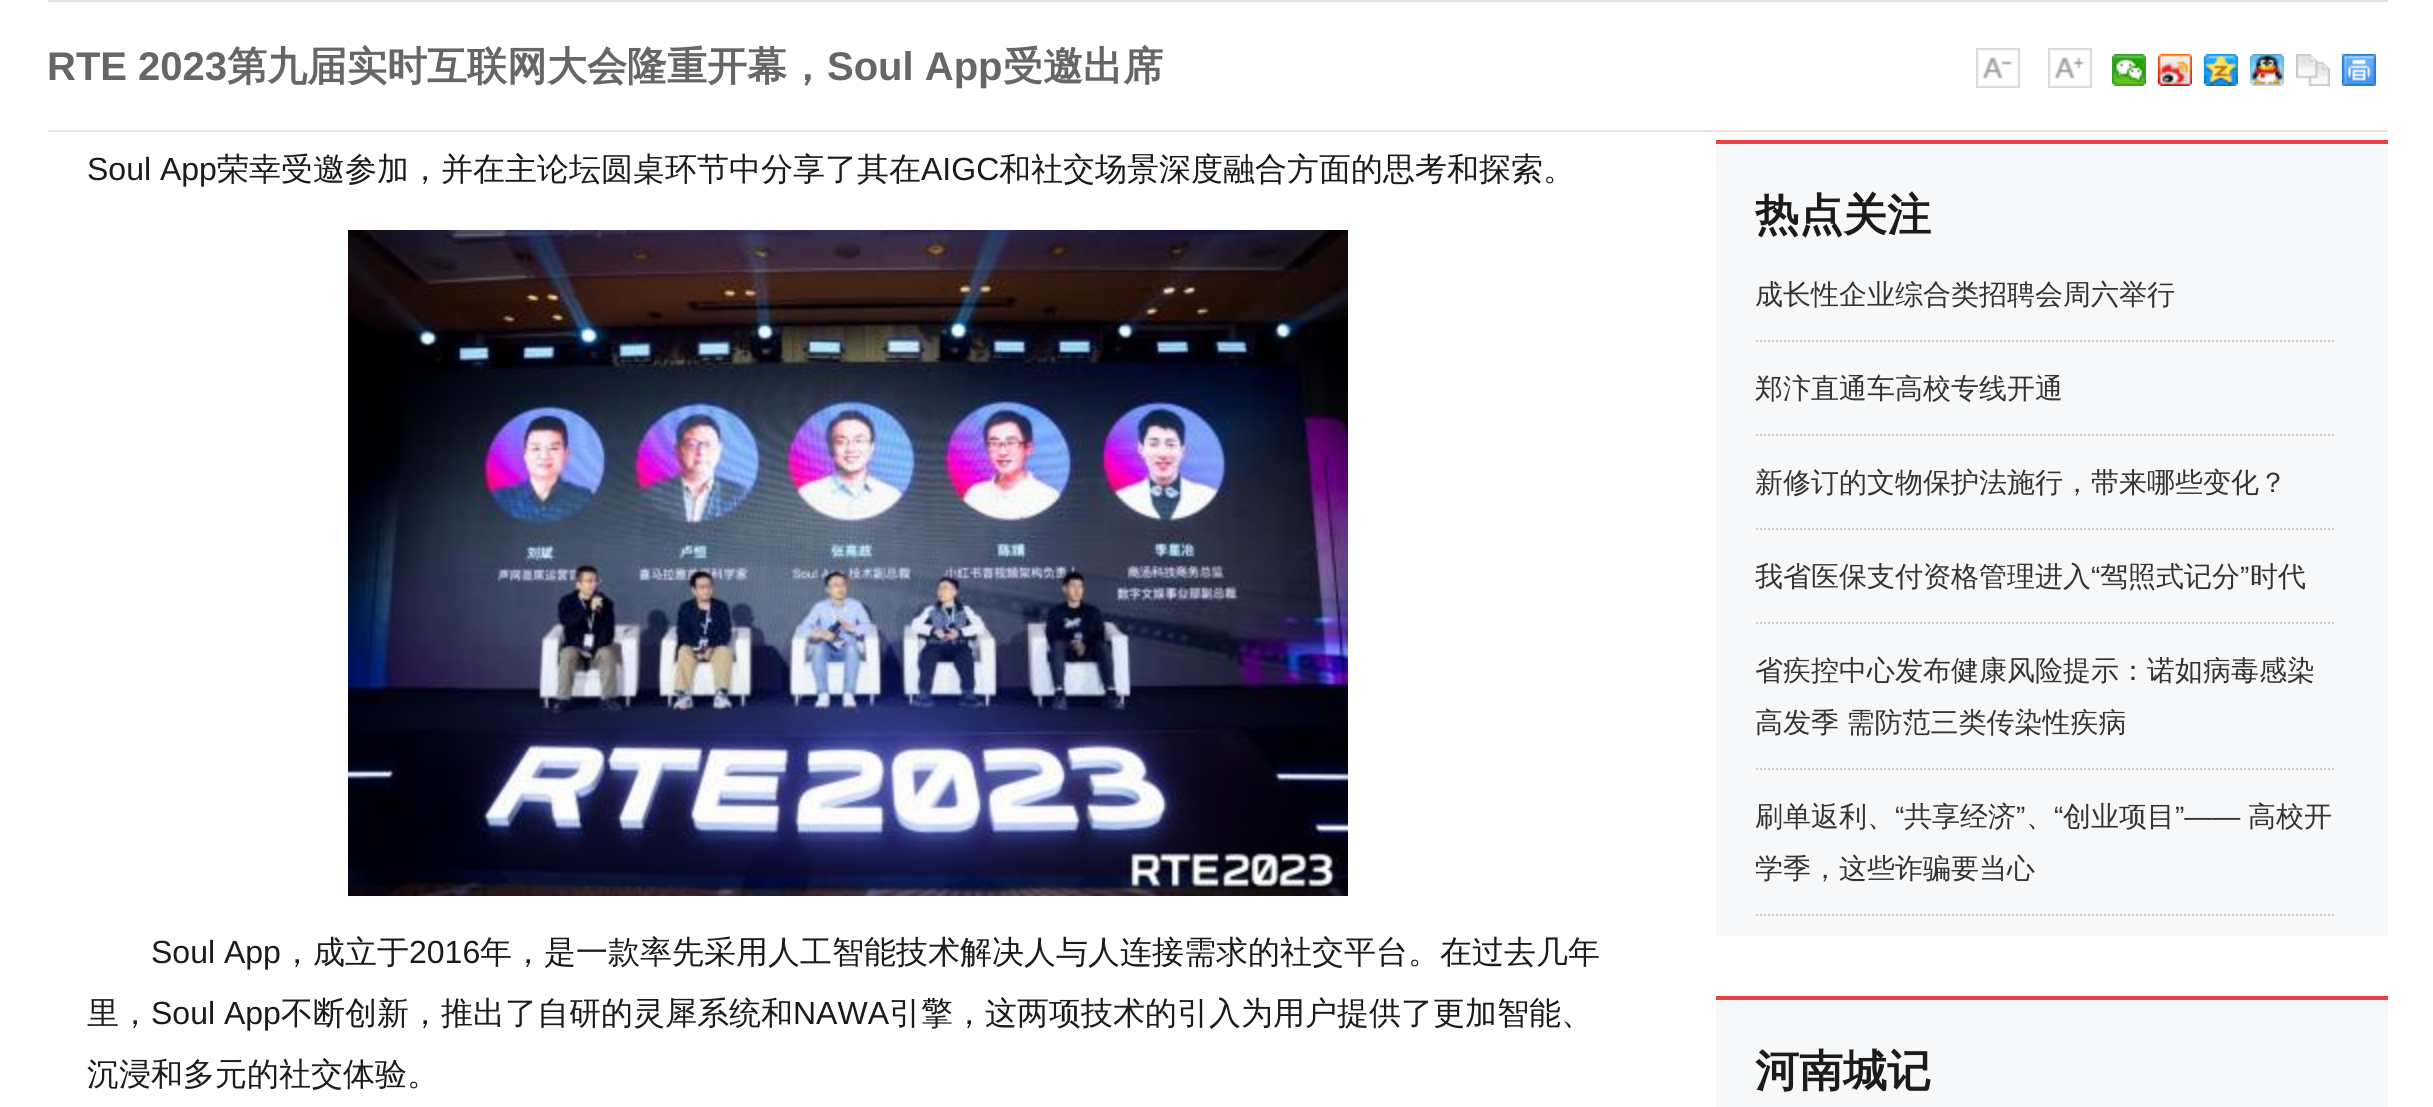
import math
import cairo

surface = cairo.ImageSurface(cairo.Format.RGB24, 2433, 1107)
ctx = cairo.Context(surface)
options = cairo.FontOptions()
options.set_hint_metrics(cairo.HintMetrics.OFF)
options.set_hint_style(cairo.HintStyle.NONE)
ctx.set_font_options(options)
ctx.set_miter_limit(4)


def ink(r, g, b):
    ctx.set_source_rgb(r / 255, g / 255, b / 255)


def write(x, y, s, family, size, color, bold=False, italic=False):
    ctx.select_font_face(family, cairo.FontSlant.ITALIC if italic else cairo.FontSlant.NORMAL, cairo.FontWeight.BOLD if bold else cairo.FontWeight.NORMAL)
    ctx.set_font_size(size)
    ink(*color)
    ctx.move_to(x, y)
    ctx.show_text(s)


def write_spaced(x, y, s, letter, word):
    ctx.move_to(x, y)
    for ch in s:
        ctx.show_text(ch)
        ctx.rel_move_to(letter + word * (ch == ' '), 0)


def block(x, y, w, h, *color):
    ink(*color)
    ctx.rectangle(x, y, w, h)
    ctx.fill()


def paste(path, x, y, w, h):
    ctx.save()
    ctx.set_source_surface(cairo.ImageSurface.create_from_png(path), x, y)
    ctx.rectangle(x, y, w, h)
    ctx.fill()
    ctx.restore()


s1 = dict(family="Liberation Sans", size=40, color=(102, 102, 102), bold=True)
s2 = dict(family="WenQuanYi Zen Hei", size=40, color=(102, 102, 102), bold=True)
s3 = dict(family="Liberation Sans", size=32, color=(27, 27, 27))
s4 = dict(family="WenQuanYi Zen Hei Medium", size=32, color=(27, 27, 27))
s5 = dict(family="WenQuanYi Zen Hei", size=44, color=(27, 27, 27), bold=True)
s6 = dict(family="WenQuanYi Zen Hei Medium", size=28, color=(51, 51, 51))
s7 = dict(family="Liberation Sans", size=28, color=(51, 51, 51))

ink(255, 255, 255)
ctx.paint()
block(48, 0, 2340, 2, 229, 229, 229)
block(48, 130, 2340, 2, 229, 229, 229)
write(47, 80, "RTE 2023", **s1)
write(227, 80, "第九届实时互联网大会隆重开幕，", **s2)
write(827, 80, "Soul App", **s1)
write(1003, 80, "受邀出席", **s2)
paste("pic1.png", 1976, 48, 44, 40)
paste("pic2.png", 2048, 48, 44, 40)
paste("pic3.png", 2112, 54, 34, 32)
paste("pic4.png", 2158, 54, 34, 32)
paste("pic5.png", 2204, 54, 34, 32)
paste("pic6.png", 2250, 54, 34, 32)
paste("pic7.png", 2296, 54, 34, 32)
paste("pic8.png", 2342, 54, 34, 32)
write(87, 180, "Soul App", **s3)
write(217, 180, "荣幸受邀参加，并在主论坛圆桌环节中分享了其在", **s4)
write(921, 180, "AIGC", **s3)
write(999, 180, "和社交场景深度融合方面的思考和探索。", **s4)
paste("pic9.png", 348, 230, 1000, 666)
write(151, 963, "Soul App", **s3)
write(281, 963, "，成立于", **s4)
write(409, 963, "2016", **s3)
write(480, 963, "年，是一款率先采用人工智能技术解决人与人连接需求的社交平台。在过去几年", **s4)
write(87, 1024, "里，", **s4)
write(151, 1024, "Soul App", **s3)
write(281, 1024, "不断创新，推出了自研的灵犀系统和", **s4)
write(793, 1024, "NAWA", **s3)
write(889, 1024, "引擎，这两项技术的引入为用户提供了更加智能、", **s4)
write(87, 1085, "沉浸和多元的社交体验。", **s4)
block(1716, 144, 672, 792, 247, 248, 249)
block(1716, 140, 672, 4, 238, 64, 64)
write(1755, 230, "热点关注", **s5)
ctx.new_path()
ctx.move_to(1756, 341)
ctx.line_to(2336, 341)
ink(204, 204, 204)
ctx.set_dash([2, 2])
ctx.stroke()
write(1755, 304, "成长性企业综合类招聘会周六举行", **s6)
ctx.new_path()
ctx.move_to(1756, 435)
ctx.line_to(2336, 435)
ink(204, 204, 204)
ctx.stroke()
write(1755, 398, "郑汴直通车高校专线开通", **s6)
ctx.new_path()
ctx.move_to(1756, 529)
ctx.line_to(2336, 529)
ink(204, 204, 204)
ctx.stroke()
write(1755, 492, "新修订的文物保护法施行，带来哪些变化？", **s6)
ctx.new_path()
ctx.move_to(1756, 623)
ctx.line_to(2336, 623)
ink(204, 204, 204)
ctx.stroke()
write(1755, 586, "我省医保支付资格管理进入", **s6)
write(2091, 586, "“", **s7)
write(2100, 586, "驾照式记分", **s6)
write(2240, 586, "”", **s7)
write(2250, 586, "时代", **s6)
ctx.new_path()
ctx.move_to(1756, 769)
ctx.line_to(2336, 769)
ink(204, 204, 204)
ctx.stroke()
write(1755, 680, "省疾控中心发布健康风险提示：诺如病毒感染", **s6)
write_spaced(1755, 732, "高发季 需防范三类传染性疾病", 0, -1)
ctx.new_path()
ctx.move_to(1756, 915)
ctx.line_to(2336, 915)
ink(204, 204, 204)
ctx.stroke()
write(1755, 826, "刷单返利、", **s6)
write(1895, 826, "“", **s7)
write(1904, 826, "共享经济", **s6)
write(2016, 826, "”", **s7)
write(2054, 826, "“", **s7)
write(2063, 826, "创业项目", **s6)
write(2175, 826, "”——", **s7)
write(2248, 826, "高校开", **s6)
write(2026, 826, "、", **s6)
write(1755, 878, "学季，这些诈骗要当心", **s6)
block(1716, 1000, 672, 107, 247, 248, 249)
block(1716, 996, 672, 4, 238, 64, 64)
write(1755, 1086, "河南城记", **s5)
surface.write_to_png("screenshot.png")
